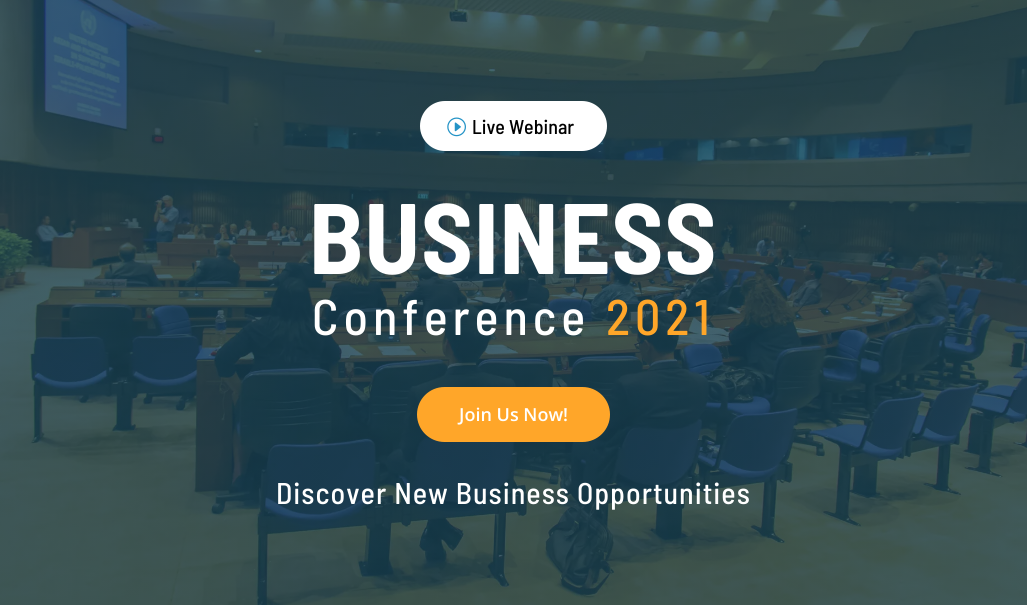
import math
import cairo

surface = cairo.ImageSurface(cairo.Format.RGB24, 1027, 605)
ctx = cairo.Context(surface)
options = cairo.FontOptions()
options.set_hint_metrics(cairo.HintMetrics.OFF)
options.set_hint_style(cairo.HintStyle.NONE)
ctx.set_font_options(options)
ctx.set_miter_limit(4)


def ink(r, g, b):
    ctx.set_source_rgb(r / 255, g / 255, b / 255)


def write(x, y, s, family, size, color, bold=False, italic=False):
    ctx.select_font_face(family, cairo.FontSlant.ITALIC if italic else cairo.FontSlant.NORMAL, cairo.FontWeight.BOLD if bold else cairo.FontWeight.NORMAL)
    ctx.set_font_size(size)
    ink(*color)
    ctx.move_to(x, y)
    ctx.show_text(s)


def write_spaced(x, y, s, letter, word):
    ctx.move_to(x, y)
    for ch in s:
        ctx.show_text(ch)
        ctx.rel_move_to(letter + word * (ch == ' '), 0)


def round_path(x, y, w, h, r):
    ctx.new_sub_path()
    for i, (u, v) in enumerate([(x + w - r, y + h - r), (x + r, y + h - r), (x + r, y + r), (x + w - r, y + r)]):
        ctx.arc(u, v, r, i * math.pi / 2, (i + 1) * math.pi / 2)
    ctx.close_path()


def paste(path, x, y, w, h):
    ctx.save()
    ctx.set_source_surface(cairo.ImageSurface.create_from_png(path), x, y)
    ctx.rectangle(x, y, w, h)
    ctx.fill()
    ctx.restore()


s1 = dict(family="Barlow Semi Condensed Medium", size=20, color=(0, 0, 0))
s2 = dict(family="Open Sans SemiBold", size=18, color=(255, 255, 255))

ink(255, 255, 255)
ctx.paint()
paste("pic1.png", 0, 0, 1027, 605)
ink(255, 255, 255)
round_path(421, 102, 185, 48, 24)
ctx.fill_preserve()
ctx.stroke()
paste("pic2.png", 447, 117, 19, 20)
write(472, 134, "Live Webinar", **s1)
ctx.select_font_face("Barlow Semi Condensed", cairo.FontSlant.NORMAL, cairo.FontWeight.BOLD)
ctx.set_font_size(100)
ink(255, 255, 255)
write_spaced(309, 274, "BUSINESS", 1, 0)
ctx.select_font_face("Barlow Semi Condensed Medium")
ctx.set_font_size(50)
write_spaced(312, 335, "Conference", 5, 0)
ink(255, 166, 41)
write_spaced(606, 335, "2021", 5, 0)
round_path(418, 388, 191, 53, 26.5)
ctx.fill_preserve()
ctx.stroke()
write(459, 421, "Join Us Now!", **s2)
ctx.select_font_face("Barlow Semi Condensed Medium")
ctx.set_font_size(30)
write_spaced(276, 504, "Discover New Business Opportunities", 1, 0)
surface.write_to_png("screenshot.png")
